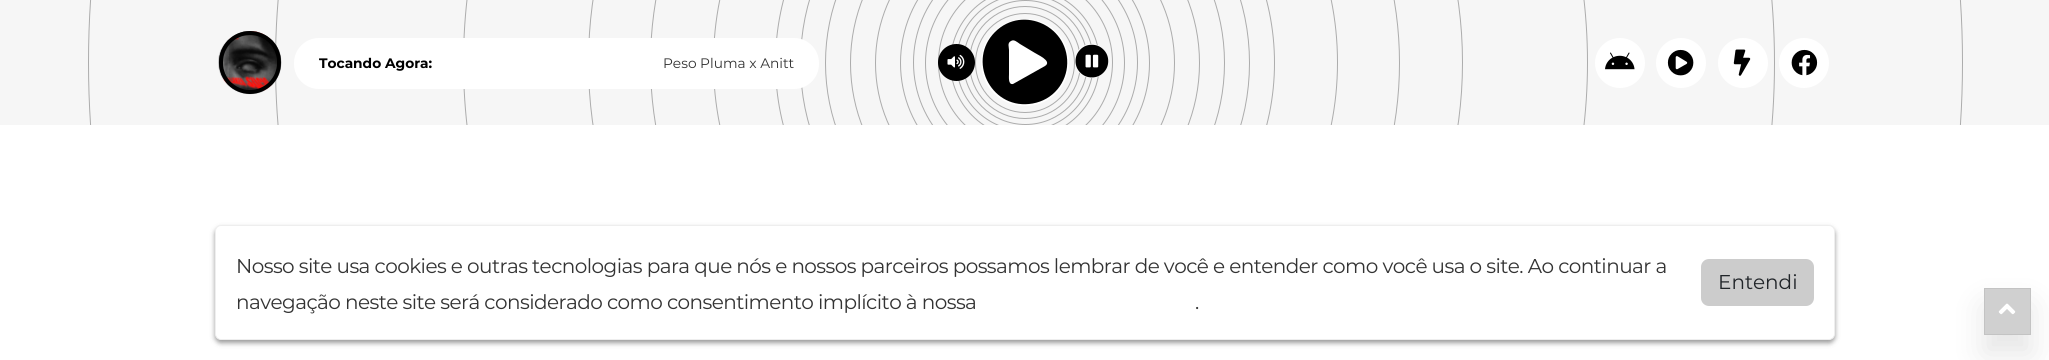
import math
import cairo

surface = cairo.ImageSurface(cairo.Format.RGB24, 2049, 360)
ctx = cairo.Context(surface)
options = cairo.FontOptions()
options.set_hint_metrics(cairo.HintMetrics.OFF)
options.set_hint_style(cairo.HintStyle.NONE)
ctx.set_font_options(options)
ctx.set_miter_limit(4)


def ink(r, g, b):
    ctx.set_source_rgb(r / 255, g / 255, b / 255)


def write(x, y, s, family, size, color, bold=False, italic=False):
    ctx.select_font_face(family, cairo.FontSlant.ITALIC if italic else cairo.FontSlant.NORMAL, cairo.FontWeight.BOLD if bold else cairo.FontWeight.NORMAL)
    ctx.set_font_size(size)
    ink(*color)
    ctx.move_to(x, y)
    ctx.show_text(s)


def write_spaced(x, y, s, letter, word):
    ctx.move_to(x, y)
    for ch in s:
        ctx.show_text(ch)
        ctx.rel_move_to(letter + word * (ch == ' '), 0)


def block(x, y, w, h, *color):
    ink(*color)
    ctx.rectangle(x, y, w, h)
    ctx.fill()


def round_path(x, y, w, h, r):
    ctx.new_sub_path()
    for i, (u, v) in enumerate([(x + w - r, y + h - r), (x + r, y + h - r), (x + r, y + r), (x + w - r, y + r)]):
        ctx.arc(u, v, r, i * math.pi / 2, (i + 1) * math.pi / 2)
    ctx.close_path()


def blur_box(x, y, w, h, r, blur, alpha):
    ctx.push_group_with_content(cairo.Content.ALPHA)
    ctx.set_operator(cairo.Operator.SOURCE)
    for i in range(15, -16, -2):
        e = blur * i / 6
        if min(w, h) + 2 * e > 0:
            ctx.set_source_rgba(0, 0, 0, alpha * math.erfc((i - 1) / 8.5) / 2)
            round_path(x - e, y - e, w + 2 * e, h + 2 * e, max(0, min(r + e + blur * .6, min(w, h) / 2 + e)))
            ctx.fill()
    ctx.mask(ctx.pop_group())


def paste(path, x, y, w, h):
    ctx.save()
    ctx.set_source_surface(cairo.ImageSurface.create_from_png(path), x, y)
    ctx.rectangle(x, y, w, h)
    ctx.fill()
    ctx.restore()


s1 = dict(family="Montserrat", size=13.75, color=(0, 0, 0), bold=True)
s2 = dict(family="Montserrat", size=13.75, color=(51, 51, 51))
s3 = dict(family="Montserrat", size=20, color=(33, 37, 41))

ink(255, 255, 255)
ctx.paint()
block(0, 0, 2049, 125, 246, 246, 246)
ctx.arc(1025, 63, 49.5, 0, 2 * math.pi)
ink(172, 172, 172)
ctx.set_line_width(1)
ctx.stroke()
round_path(969.5, 6.5, 111, 112, 55.5)
ctx.stroke()
ctx.arc(1025.5, 62.5, 62, 0, 2 * math.pi)
ctx.stroke()
ctx.save()
ctx.rectangle(0, 0, 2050, 125)
ctx.clip()
round_path(956.5, -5.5, 137, 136, 68)
ctx.stroke()
ctx.arc(1025, 63, 74.5, 0, 2 * math.pi)
ctx.stroke()
ctx.arc(1025.5, 62.5, 87, 0, 2 * math.pi)
ctx.stroke()
ctx.arc(1025, 63, 99.5, 0, 2 * math.pi)
ctx.stroke()
ctx.arc(1025.5, 62.5, 112, 0, 2 * math.pi)
ctx.stroke()
ctx.arc(1025, 63, 124.5, 0, 2 * math.pi)
ctx.stroke()
ctx.arc(1025, 63, 149.5, 0, 2 * math.pi)
ctx.stroke()
ctx.arc(1025, 63, 174.5, 0, 2 * math.pi)
ctx.stroke()
ctx.arc(1025, 63, 199.5, 0, 2 * math.pi)
ctx.stroke()
ctx.arc(1025, 63, 224.5, 0, 2 * math.pi)
ctx.stroke()
ctx.arc(1025, 63, 249.5, 0, 2 * math.pi)
ctx.stroke()
ctx.arc(1025.5, 62.5, 312, 0, 2 * math.pi)
ctx.stroke()
ctx.arc(1025, 63, 374.5, 0, 2 * math.pi)
ctx.stroke()
ctx.arc(1025.5, 62.5, 437, 0, 2 * math.pi)
ctx.stroke()
ctx.arc(1025.5, 62.5, 562, 0, 2 * math.pi)
ctx.stroke()
ctx.arc(1025, 63, 749.5, 0, 2 * math.pi)
ctx.stroke()
ctx.arc(1025.5, 62.5, 937, 0, 2 * math.pi)
ctx.stroke()
ctx.restore()
paste("pic1.png", 218, 31, 64, 64)
round_path(221, 33, 58, 59, 29)
ink(0, 0, 0)
ctx.set_line_width(4)
ctx.stroke()
ink(255, 255, 255)
round_path(294, 38, 525, 51, 25)
ctx.fill()
write(319, 68, "Tocando Agora:", **s1)
write(663, 68, "Peso Pluma x Anitt", **s2)
ink(0, 0, 0)
ctx.new_path()
ctx.arc(956.5, 62.5, 18.5, 0, 2 * math.pi)
ctx.fill()
paste("pic2.png", 947, 54, 18, 15)
ink(255, 255, 255)
round_path(981, 19, 88, 87, 43.5)
ctx.fill()
ink(0, 0, 0)
ctx.new_path()
ctx.move_to(995, 32)
ctx.curve_to(1023, 4, 1071, 27, 1067, 67)
ctx.curve_to(1066, 76, 1062, 85, 1055, 92)
ctx.curve_to(1048, 99, 1039, 103, 1029, 104)
ctx.curve_to(990, 108, 967, 60, 995, 32)
ctx.close_path()
ctx.move_to(1045, 66)
ctx.curve_to(1053, 61, 1036, 54, 1035, 53)
ctx.line_to(1020, 44)
ctx.curve_to(1017, 42, 1014, 39, 1011, 41)
ctx.curve_to(1007, 43, 1009, 47, 1009, 50)
ctx.line_to(1009, 74)
ctx.curve_to(1009, 77, 1008, 85, 1013, 84)
ctx.close_path()
ctx.fill()
ink(255, 255, 255)
round_path(1075, 44, 33, 34, 16.5)
ctx.fill()
paste("pic3.png", 1075, 44, 34, 34)
ctx.arc(1620, 63, 25, 0, 2 * math.pi)
ctx.fill()
paste("pic4.png", 1605, 52, 30, 18)
ctx.arc(1681, 63, 25, 0, 2 * math.pi)
ctx.fill()
paste("pic5.png", 1667, 49, 27, 27)
ctx.arc(1743, 63, 25, 0, 2 * math.pi)
ctx.fill()
paste("pic6.png", 1733, 49, 18, 27)
ctx.arc(1804, 63, 25, 0, 2 * math.pi)
ctx.fill()
paste("pic7.png", 1791, 49, 27, 27)
ink(0, 0, 0)
blur_box(215, 228, 1620, 115, 6, 2.5, 0.4)
ink(255, 255, 255)
round_path(215.5, 225.5, 1619, 114, 5.5)
ctx.fill_preserve()
ink(238, 238, 238)
ctx.set_line_width(1)
ctx.stroke()
ctx.set_font_size(20)
ink(51, 51, 51)
write_spaced(236, 273, "Nosso site usa cookies e outras tecnologias para que nós e nossos parceiros possamos lembrar de você e entender como você usa o site. Ao continuar a", -0.56, 0)
write_spaced(236, 309, "navegação neste site será considerado como consentimento implícito à nossa", -0.56, 0)
write_spaced(1195, 309, ".", -0.56, 0)
ink(204, 204, 204)
round_path(1701, 259, 113, 47, 8)
ctx.fill()
write(1718, 289, "Entendi", **s3)
ink(0, 0, 0)
blur_box(1984, 306, 47, 48, 0, 15.5, 0.1)
ink(208, 208, 208)
ctx.rectangle(1984.5, 288.5, 46, 46)
ctx.fill_preserve()
ink(195, 195, 195)
ctx.stroke()
paste("pic8.png", 1998, 303, 18, 12)
surface.write_to_png("screenshot.png")
